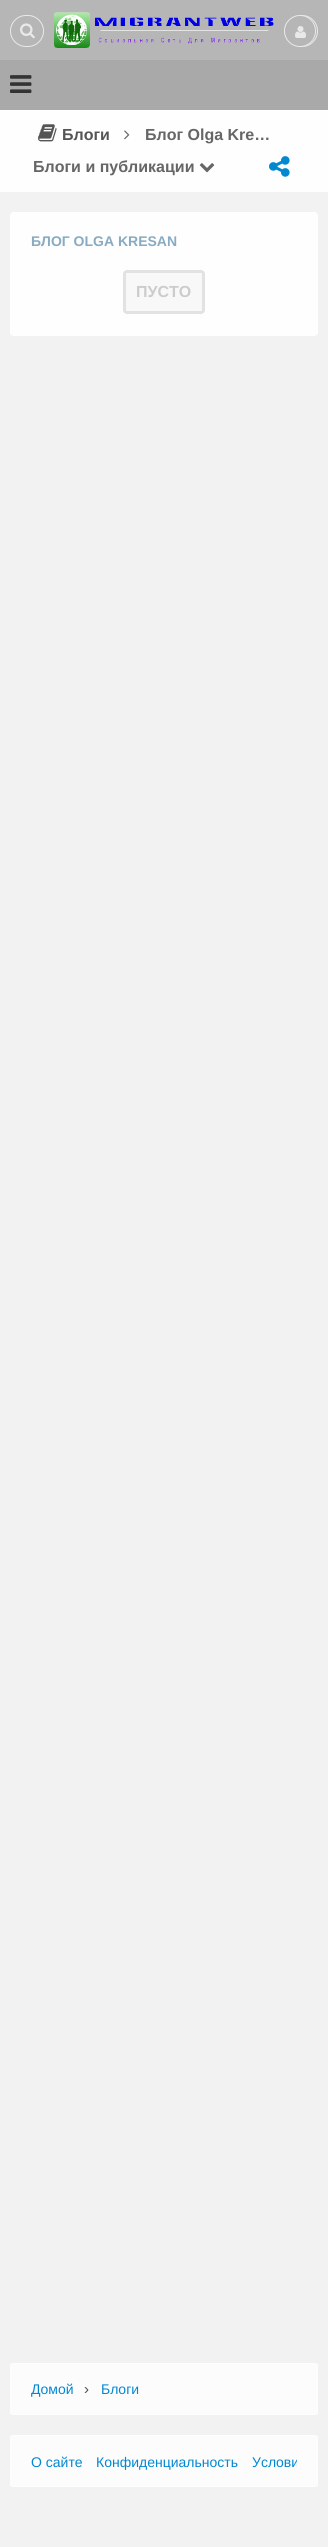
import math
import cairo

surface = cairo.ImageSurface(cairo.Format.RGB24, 328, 2547)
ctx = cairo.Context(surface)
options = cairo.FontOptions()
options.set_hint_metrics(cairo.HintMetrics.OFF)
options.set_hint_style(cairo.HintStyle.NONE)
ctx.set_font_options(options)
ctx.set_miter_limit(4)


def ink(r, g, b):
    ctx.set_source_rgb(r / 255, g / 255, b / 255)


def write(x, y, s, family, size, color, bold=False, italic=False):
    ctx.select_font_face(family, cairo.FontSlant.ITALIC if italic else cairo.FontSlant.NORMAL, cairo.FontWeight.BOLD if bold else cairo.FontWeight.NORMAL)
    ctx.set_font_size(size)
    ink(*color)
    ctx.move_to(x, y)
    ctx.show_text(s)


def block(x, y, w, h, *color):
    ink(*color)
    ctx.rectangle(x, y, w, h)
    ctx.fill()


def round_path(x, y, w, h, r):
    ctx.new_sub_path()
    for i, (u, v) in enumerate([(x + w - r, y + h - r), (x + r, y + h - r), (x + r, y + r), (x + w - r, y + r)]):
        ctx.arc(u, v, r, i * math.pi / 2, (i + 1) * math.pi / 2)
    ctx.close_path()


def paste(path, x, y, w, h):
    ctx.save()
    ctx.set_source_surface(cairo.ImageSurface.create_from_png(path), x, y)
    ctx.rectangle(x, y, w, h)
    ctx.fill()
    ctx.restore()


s1 = dict(family="Liberation Sans", size=16, color=(85, 85, 85), bold=True)
s2 = dict(family="Liberation Sans", size=16, color=(102, 102, 102), bold=True)
s3 = dict(family="Liberation Sans", size=14, color=(136, 171, 194), bold=True)
s4 = dict(family="Liberation Sans", size=16, color=(204, 204, 204), bold=True)
s5 = dict(family="Liberation Sans", size=14, color=(2, 136, 209))
s6 = dict(family="Liberation Sans", size=15, color=(76, 76, 76))

ink(242, 242, 242)
ctx.paint()
block(0, 0, 328, 60, 182, 182, 182)
round_path(10.5, 15.5, 33, 31, 15.5)
ink(233, 233, 233)
ctx.set_line_width(1)
ctx.stroke()
paste("pic1.png", 20, 23, 15, 16)
paste("pic2.png", 54, 12, 220, 36)
round_path(284.5, 15.5, 33, 31, 15.5)
ctx.stroke()
ctx.set_source_rgba(1, 1, 1, 0.7)
ctx.new_path()
ctx.move_to(300, 16)
ctx.curve_to(303, 16, 306, 16, 308.5, 17.5)
ctx.curve_to(318.5, 24, 318.5, 38, 308.5, 44.5)
ctx.curve_to(306, 46, 303, 46, 300, 46)
ctx.curve_to(308.5, 46, 315, 39.5, 315, 31)
ctx.curve_to(315, 22.5, 308.5, 16, 300, 16)
ctx.close_path()
ctx.fill()
paste("pic3.png", 295, 26, 11, 12)
block(0, 60, 328, 50, 169, 169, 169)
paste("pic4.png", 10, 75, 22, 18)
block(0, 110, 328, 82, 254, 254, 254)
paste("pic5.png", 38, 124, 19, 18)
write(62, 140, "Блоги", **s1)
paste("pic6.png", 124, 130, 6, 10)
write(145, 140, "Блог Olga Kre…", **s2)
write(33, 172, "Блоги и публикации", **s2)
paste("pic7.png", 199, 163, 16, 10)
paste("pic8.png", 269, 156, 21, 21)
ink(254, 254, 254)
round_path(10, 212, 308, 124, 4)
ctx.fill()
ctx.new_path()
ctx.move_to(14, 212.5)
ctx.line_to(314, 212.5)
ctx.curve_to(316, 212.5, 317.5, 214, 317.5, 216)
ctx.line_to(317.5, 332)
ctx.curve_to(317.5, 334, 316, 335.5, 314, 335.5)
ctx.line_to(14, 335.5)
ctx.curve_to(12, 335.5, 10.5, 334, 10.5, 332)
ctx.line_to(10.5, 216)
ctx.curve_to(10.5, 214, 12, 212.5, 14, 212.5)
ctx.close_path()
ink(255, 255, 255)
ctx.set_dash([1, 1])
ctx.stroke()
write(31, 246, "БЛОГ OLGA KRESAN", **s3)
ink(248, 248, 248)
round_path(124.5, 271.5, 79, 41, 2.5)
ctx.fill_preserve()
ink(226, 226, 226)
ctx.set_line_width(3)
ctx.set_dash([])
ctx.stroke()
write(136, 297, "ПУСТО", **s4)
ink(252, 252, 252)
round_path(10, 2363, 308, 52, 3)
ctx.fill()
ctx.new_path()
ctx.move_to(13, 2363.5)
ctx.line_to(315, 2363.5)
ctx.curve_to(316.5, 2363.5, 317.5, 2364.5, 317.5, 2366)
ctx.line_to(317.5, 2412)
ctx.curve_to(317.5, 2413.5, 316.5, 2414.5, 315, 2414.5)
ctx.line_to(13, 2414.5)
ctx.curve_to(11.5, 2414.5, 10.5, 2413.5, 10.5, 2412)
ctx.line_to(10.5, 2366)
ctx.curve_to(10.5, 2364.5, 11.5, 2363.5, 13, 2363.5)
ctx.close_path()
ink(255, 255, 255)
ctx.set_line_width(1)
ctx.set_dash([1, 1])
ctx.stroke()
write(31, 2394, "Домой", **s5)
write(84, 2394, "›", **s6)
write(101, 2394, "Блоги", **s5)
ink(252, 252, 252)
round_path(10, 2435, 308, 52, 3)
ctx.fill()
ctx.new_path()
ctx.move_to(13, 2435.5)
ctx.line_to(315, 2435.5)
ctx.curve_to(316.5, 2435.5, 317.5, 2436.5, 317.5, 2438)
ctx.line_to(317.5, 2484)
ctx.curve_to(317.5, 2485.5, 316.5, 2486.5, 315, 2486.5)
ctx.line_to(13, 2486.5)
ctx.curve_to(11.5, 2486.5, 10.5, 2485.5, 10.5, 2484)
ctx.line_to(10.5, 2438)
ctx.curve_to(10.5, 2436.5, 11.5, 2435.5, 13, 2435.5)
ctx.close_path()
ink(255, 255, 255)
ctx.stroke()
write(31, 2467, "О сайте", **s5)
write(96, 2467, "Конфиденциальность", **s5)
ctx.save()
ctx.rectangle(31, 2437, 266, 49)
ctx.clip()
write(252, 2467, "Услови", **s5)
ctx.restore()
surface.write_to_png("screenshot.png")
